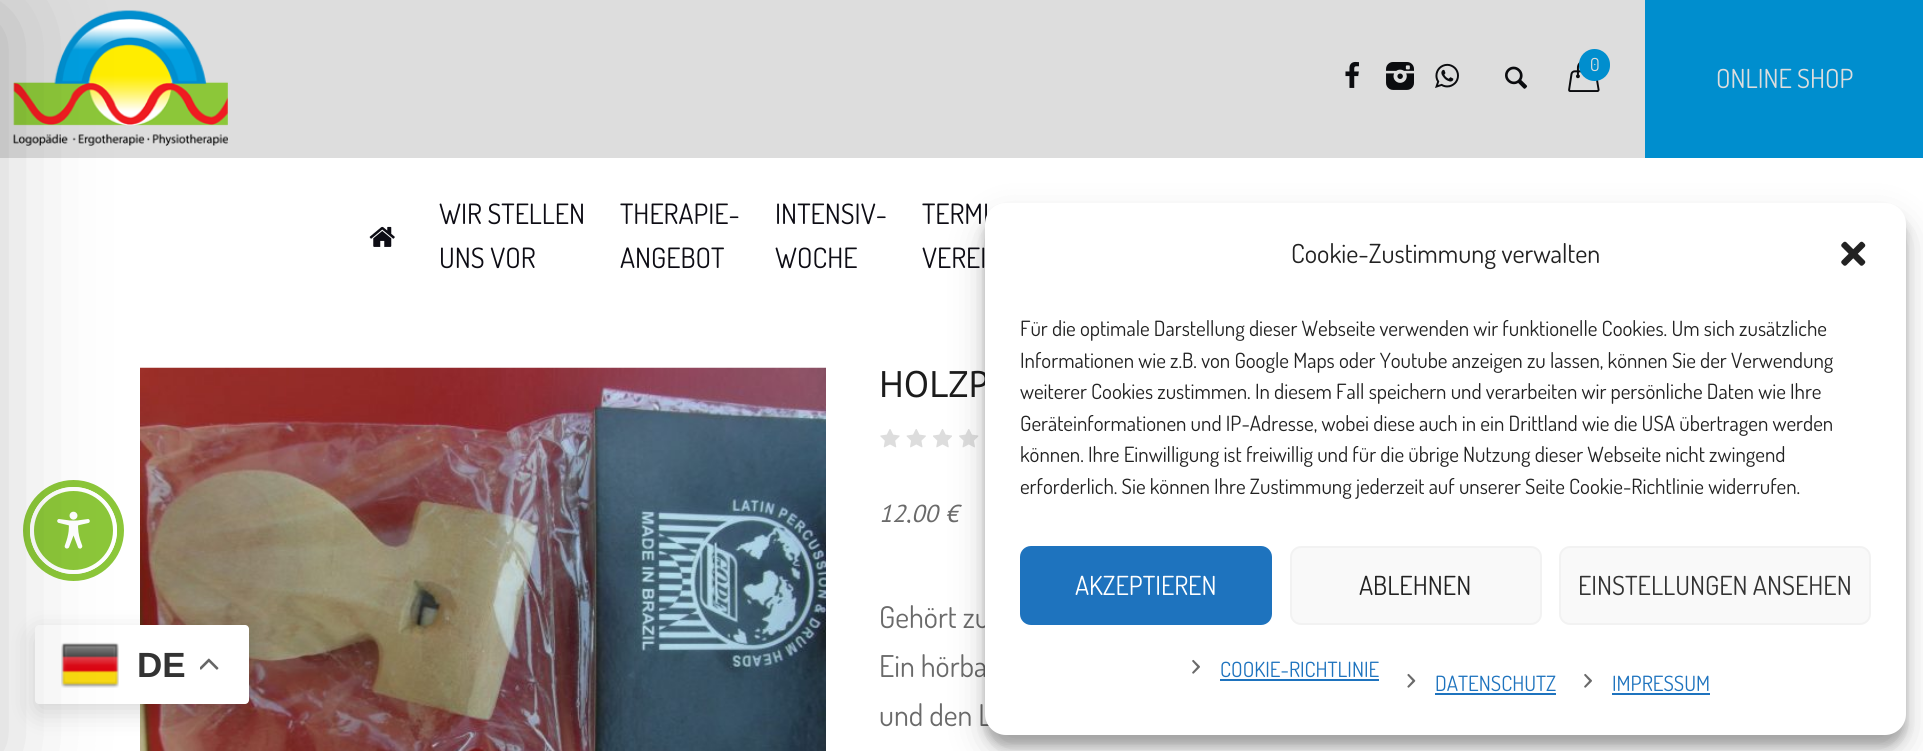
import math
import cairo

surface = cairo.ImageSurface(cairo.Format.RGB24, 1923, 751)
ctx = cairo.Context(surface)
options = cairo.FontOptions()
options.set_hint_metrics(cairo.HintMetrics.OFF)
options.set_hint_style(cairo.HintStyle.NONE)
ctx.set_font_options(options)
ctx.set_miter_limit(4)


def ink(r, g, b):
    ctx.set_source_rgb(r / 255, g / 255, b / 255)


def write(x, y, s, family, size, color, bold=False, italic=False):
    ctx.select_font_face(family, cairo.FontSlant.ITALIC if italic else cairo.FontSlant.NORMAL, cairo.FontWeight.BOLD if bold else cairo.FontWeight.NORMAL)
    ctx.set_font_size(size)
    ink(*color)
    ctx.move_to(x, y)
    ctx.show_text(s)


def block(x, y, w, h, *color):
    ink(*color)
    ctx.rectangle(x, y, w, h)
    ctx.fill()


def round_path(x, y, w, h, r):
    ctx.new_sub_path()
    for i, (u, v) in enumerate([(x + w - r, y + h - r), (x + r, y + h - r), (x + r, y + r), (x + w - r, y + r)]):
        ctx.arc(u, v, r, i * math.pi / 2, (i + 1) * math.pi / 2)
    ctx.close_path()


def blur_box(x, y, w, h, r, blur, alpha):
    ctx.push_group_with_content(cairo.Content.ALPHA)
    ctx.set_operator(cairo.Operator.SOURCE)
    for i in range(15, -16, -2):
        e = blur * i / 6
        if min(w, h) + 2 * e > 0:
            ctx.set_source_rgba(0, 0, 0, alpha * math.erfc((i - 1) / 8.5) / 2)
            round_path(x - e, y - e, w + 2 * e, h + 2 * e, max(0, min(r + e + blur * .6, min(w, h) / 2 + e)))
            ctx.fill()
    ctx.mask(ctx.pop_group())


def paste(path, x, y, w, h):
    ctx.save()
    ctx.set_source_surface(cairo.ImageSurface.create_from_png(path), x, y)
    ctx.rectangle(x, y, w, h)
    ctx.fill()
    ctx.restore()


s1 = dict(family="Dosis", size=18, color=(221, 221, 221))
s2 = dict(family="Dosis", size=26.25, color=(221, 221, 221))
s3 = dict(family="Dosis", size=28, color=(13, 12, 20))
s4 = dict(family="PT Sans", size=37, color=(28, 28, 28))
s5 = dict(family="PT Sans", size=24.5, color=(106, 106, 106), italic=True)
s6 = dict(family="Dosis", size=30, color=(106, 106, 106))
s7 = dict(family="Dosis", size=26.25, color=(34, 34, 34))
s8 = dict(family="Dosis", size=21, color=(34, 34, 34))
s9 = dict(family="Dosis", size=26.25, color=(255, 255, 255))
s10 = dict(family="Dosis", size=26.25, color=(51, 51, 51))
s11 = dict(family="Dosis", size=21, color=(30, 115, 190))
s12 = dict(family="Liberation Sans", size=35, color=(51, 51, 51), bold=True)

ink(255, 255, 255)
ctx.paint()
block(0, 0, 1645, 158, 221, 221, 221)
paste("pic1.png", 13, 10, 215, 136)
paste("pic8.png", 140, 367, 686, 384)
ctx.arc(73.5, 530.5, 47, 0, 2 * math.pi)
ink(140, 199, 57)
ctx.set_line_width(7)
ctx.stroke()
ctx.arc(73.5, 530.5, 41.5, 0, 2 * math.pi)
ctx.fill_preserve()
ink(255, 255, 255)
ctx.set_line_width(4)
ctx.stroke()
paste("pic13.png", 57, 511, 33, 38)
ink(0, 0, 0)
blur_box(35, 634, 214, 78, 4, 13, 0.15)
ink(255, 255, 255)
round_path(35, 625, 214, 79, 4)
ctx.fill()
paste("pic17.png", 61, 642, 58, 46)
ink(0, 0, 0)
blur_box(-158, 18, 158, 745, 0, 52.5, 0.2)
paste("pic2.png", 1345, 61, 14, 27)
paste("pic3.png", 1386, 62, 28, 28)
paste("pic4.png", 1435, 63, 24, 25)
paste("pic5.png", 1505, 66, 23, 23)
paste("pic6.png", 1568, 61, 32, 31)
ink(0, 142, 206)
round_path(1579, 49, 31, 32, 15.5)
ctx.fill()
write(1590, 71, "0", **s1)
block(1645, 0, 278, 158, 0, 142, 206)
write(1716, 88, "ONLINE SHOP", **s2)
paste("pic7.png", 369, 226, 26, 21)
write(439, 224, "WIR STELLEN", **s3)
write(439, 268, "UNS VOR", **s3)
write(620, 224, "THERAPIE-", **s3)
write(620, 268, "ANGEBOT", **s3)
write(775, 224, "INTENSIV-", **s3)
write(775, 268, "WOCHE", **s3)
write(922, 224, "TERMI", **s3)
write(922, 268, "VEREI", **s3)
write(879, 397, "HOLZP", **s4)
paste("pic9.png", 880, 429, 20, 19)
paste("pic10.png", 906, 429, 20, 19)
paste("pic11.png", 933, 429, 19, 19)
paste("pic12.png", 959, 429, 20, 19)
ctx.save()
ctx.rectangle(879, 368, 906, 155)
ctx.clip()
write(879, 522, "12,00", **s5)
ctx.restore()
write(945, 522, "€", **s5)
write(879, 628, "Gehört zu", **s6)
write(879, 677, "Ein hörba", **s6)
write(879, 726, "und den L", **s6)
ink(0, 0, 0)
blur_box(985, 214, 921, 532, 21, 5, 0.23)
blur_box(985, 221, 921, 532, 21, 17.5, 0.19)
ink(255, 255, 255)
round_path(985, 203, 921, 532, 21)
ctx.fill()
write(1291, 263, "Cookie-Zustimmung verwalten", **s7)
paste("pic14.png", 1841, 241, 25, 25)
write(1020, 336, "Für die optimale Darstellung dieser Webseite verwenden wir funktionelle Cookies. Um sich zusätzliche", **s8)
write(1020, 368, "Informationen wie z.B. von Google Maps oder Youtube anzeigen zu lassen, können Sie der Verwendung", **s8)
write(1020, 399, "weiterer Cookies zustimmen. In diesem Fall speichern und verarbeiten wir persönliche Daten wie Ihre", **s8)
write(1020, 431, "Geräteinformationen und IP-Adresse, wobei diese auch in ein Drittland wie die USA übertragen werden", **s8)
write(1020, 462, "können. Ihre Einwilligung ist freiwillig und für die übrige Nutzung dieser Webseite nicht zwingend", **s8)
write(1020, 494, "erforderlich. Sie können Ihre Zustimmung jederzeit auf unserer Seite Cookie-Richtlinie widerrufen.", **s8)
ink(30, 115, 190)
round_path(1021, 547, 250, 77, 10)
ctx.fill_preserve()
ctx.set_line_width(2)
ctx.stroke()
write(1075, 595, "AKZEPTIEREN", **s9)
ink(249, 249, 249)
round_path(1291, 547, 250, 77, 10)
ctx.fill_preserve()
ink(242, 242, 242)
ctx.stroke()
write(1359, 595, "ABLEHNEN", **s7)
ink(249, 249, 249)
round_path(1560, 547, 310, 77, 10)
ctx.fill_preserve()
ink(242, 242, 242)
ctx.stroke()
write(1578, 595, "EINSTELLUNGEN ANSEHEN", **s10)
paste("pic15.png", 1192, 659, 8, 15)
write(1220, 677, "COOKIE-RICHTLINIE", **s11)
block(1220, 679, 159, 2, 30, 115, 190)
paste("pic16.png", 1407, 673, 9, 15)
write(1435, 691, "DATENSCHUTZ", **s11)
block(1435, 693, 121, 2, 30, 115, 190)
paste("pic15.png", 1584, 673, 8, 15)
write(1612, 691, "IMPRESSUM", **s11)
block(1612, 693, 98, 2, 30, 115, 190)
write(137, 677, "DE", **s12)
paste("pic18.png", 200, 658, 19, 12)
surface.write_to_png("screenshot.png")
